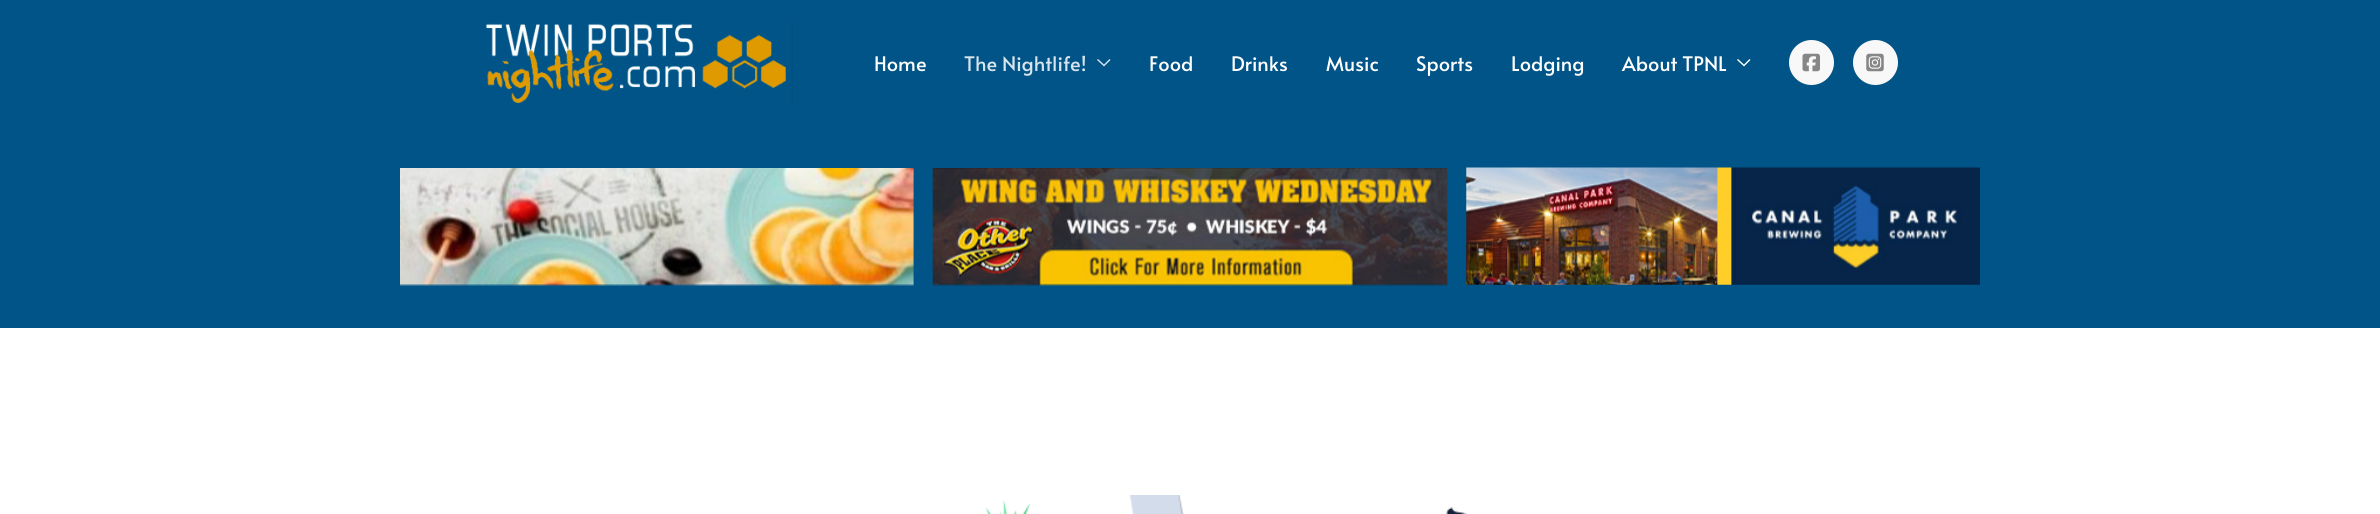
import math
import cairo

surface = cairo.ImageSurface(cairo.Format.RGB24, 2380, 514)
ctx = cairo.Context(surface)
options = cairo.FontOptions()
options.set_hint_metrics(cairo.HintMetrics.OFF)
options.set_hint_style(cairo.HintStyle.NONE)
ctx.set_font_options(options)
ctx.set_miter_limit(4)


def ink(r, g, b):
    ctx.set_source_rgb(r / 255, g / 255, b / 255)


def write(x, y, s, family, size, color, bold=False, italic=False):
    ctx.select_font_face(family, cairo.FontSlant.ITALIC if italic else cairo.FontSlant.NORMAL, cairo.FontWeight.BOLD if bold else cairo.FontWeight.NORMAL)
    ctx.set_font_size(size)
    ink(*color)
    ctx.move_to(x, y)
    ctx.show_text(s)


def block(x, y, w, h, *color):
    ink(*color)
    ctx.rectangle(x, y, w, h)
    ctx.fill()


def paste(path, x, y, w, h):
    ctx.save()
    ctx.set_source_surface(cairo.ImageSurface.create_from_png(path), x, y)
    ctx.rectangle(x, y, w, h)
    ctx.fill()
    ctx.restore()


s1 = dict(family="Alata", size=20, color=(255, 255, 255))
s2 = dict(family="Alata", size=20, color=(217, 229, 237))

ink(255, 255, 255)
ctx.paint()
block(0, 0, 2380, 328, 0, 84, 135)
paste("pic1.png", 486, 21, 307, 83)
write(874, 71, "Home", **s1)
write(964, 71, "The Nightlife!", **s2)
ctx.new_path()
ctx.move_to(1097.5, 59.5)
ctx.line_to(1104, 65.5)
ctx.line_to(1110, 59.5)
ctx.set_line_width(1.4)
ctx.stroke()
write(1149, 71, "Food", **s1)
write(1231, 71, "Drinks", **s1)
write(1326, 71, "Music", **s1)
write(1416, 71, "Sports", **s1)
write(1511, 71, "Lodging", **s1)
write(1622, 71, "About TPNL", **s1)
ctx.new_path()
ctx.move_to(1737.5, 59.5)
ctx.line_to(1744, 65.5)
ctx.line_to(1750, 59.5)
ctx.stroke()
ink(248, 248, 248)
ctx.arc(1811.5, 62.5, 22.5, 0, 2 * math.pi)
ctx.fill()
paste("pic2.png", 1802, 53, 18, 19)
ctx.arc(1875.5, 62.5, 22.5, 0, 2 * math.pi)
ctx.fill()
paste("pic3.png", 1866, 53, 18, 19)
paste("pic4.png", 400, 168, 514, 118)
paste("pic5.png", 932, 168, 516, 118)
paste("pic6.png", 1466, 167, 514, 118)
paste("pic7.png", 985, 495, 483, 19)
surface.write_to_png("screenshot.png")
